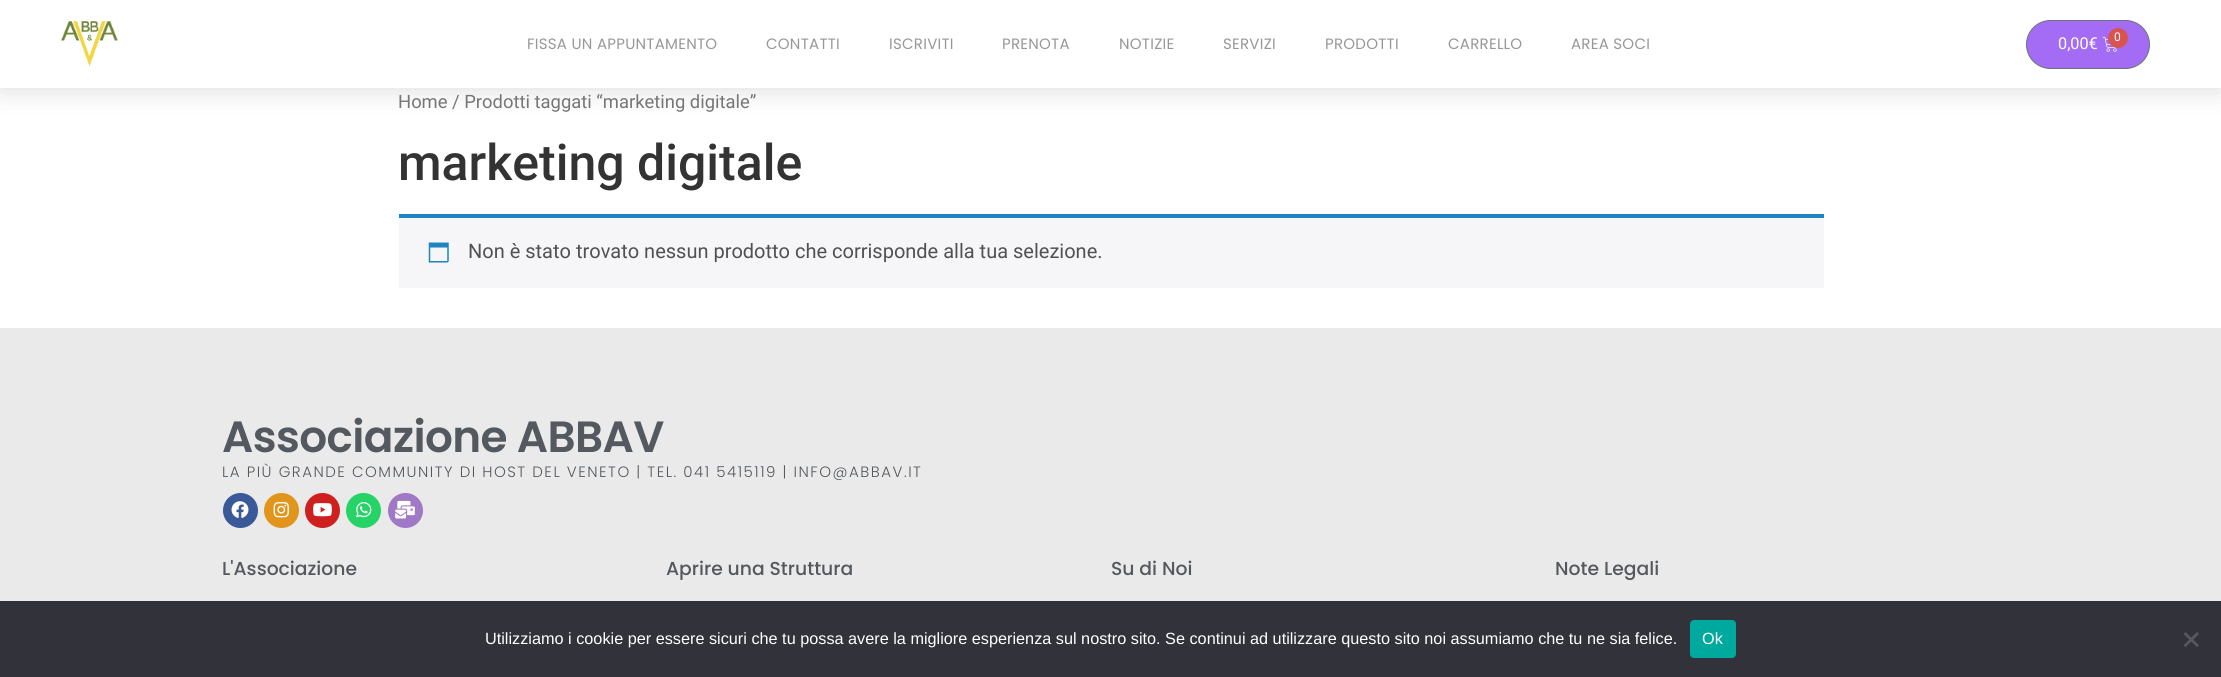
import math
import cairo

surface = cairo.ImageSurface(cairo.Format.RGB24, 2221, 677)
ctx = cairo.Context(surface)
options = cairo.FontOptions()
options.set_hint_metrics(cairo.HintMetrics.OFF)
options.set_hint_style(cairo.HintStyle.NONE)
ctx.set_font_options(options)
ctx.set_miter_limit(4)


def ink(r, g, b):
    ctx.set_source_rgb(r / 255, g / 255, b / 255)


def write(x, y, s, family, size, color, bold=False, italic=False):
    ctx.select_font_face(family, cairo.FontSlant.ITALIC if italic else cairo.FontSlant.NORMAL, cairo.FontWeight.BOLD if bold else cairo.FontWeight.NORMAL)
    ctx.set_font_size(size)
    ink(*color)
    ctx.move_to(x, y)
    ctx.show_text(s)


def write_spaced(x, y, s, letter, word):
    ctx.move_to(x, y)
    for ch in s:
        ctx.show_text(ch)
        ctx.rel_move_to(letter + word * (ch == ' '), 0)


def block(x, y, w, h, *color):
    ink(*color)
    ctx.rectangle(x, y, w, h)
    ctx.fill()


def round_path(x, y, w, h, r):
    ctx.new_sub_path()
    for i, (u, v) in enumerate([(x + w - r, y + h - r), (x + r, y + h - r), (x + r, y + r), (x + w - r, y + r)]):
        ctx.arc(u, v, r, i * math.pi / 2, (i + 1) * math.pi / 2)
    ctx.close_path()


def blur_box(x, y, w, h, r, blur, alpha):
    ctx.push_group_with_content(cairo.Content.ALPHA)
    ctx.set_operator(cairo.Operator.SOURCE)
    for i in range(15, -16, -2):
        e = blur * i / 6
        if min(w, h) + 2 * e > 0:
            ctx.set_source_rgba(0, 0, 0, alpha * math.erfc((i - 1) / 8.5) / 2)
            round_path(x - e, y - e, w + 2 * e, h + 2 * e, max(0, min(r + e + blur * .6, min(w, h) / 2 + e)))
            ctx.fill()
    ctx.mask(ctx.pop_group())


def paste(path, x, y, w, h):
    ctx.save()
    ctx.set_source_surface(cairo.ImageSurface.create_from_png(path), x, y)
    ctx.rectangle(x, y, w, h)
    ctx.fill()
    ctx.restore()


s1 = dict(family="Roboto", size=16.25, color=(255, 255, 255))
s2 = dict(family="Roboto", size=12, color=(255, 255, 255))
s3 = dict(family="Roboto", size=18.4, color=(118, 118, 118))
s4 = dict(family="Roboto Medium", size=50, color=(51, 51, 51))
s5 = dict(family="Roboto", size=20, color=(81, 81, 81))
s6 = dict(family="Poppins Medium", size=18.75, color=(84, 89, 95))
s7 = dict(family="Liberation Sans", size=16.25, color=(255, 255, 255))

ink(255, 255, 255)
ctx.paint()
ink(0, 0, 0)
blur_box(0, 0, 2221, 88, 0, 15, 0.15)
block(0, 0, 2221, 88, 255, 255, 255)
paste("pic1.png", 61, 21, 57, 46)
ctx.select_font_face("Poppins")
ctx.set_font_size(15)
ink(151, 151, 152)
write_spaced(527, 49, "FISSA UN APPUNTAMENTO", 0.25, 0)
write_spaced(766, 49, "CONTATTI", 0.25, 0)
write_spaced(889, 49, "ISCRIVITI", 0.25, 0)
write_spaced(1002, 49, "PRENOTA", 0.25, 0)
write_spaced(1119, 49, "NOTIZIE", 0.25, 0)
write_spaced(1223, 49, "SERVIZI", 0.25, 0)
write_spaced(1325, 49, "PRODOTTI", 0.25, 0)
write_spaced(1448, 49, "CARRELLO", 0.25, 0)
write_spaced(1571, 49, "AREA SOCI", 0.25, 0)
ink(164, 108, 244)
round_path(2026.5, 20.5, 123, 48, 24)
ctx.fill_preserve()
ink(105, 114, 125)
ctx.set_line_width(1)
ctx.stroke()
write(2058, 49, "0,00€", **s1)
paste("pic2.png", 2102, 36, 15, 16)
ink(217, 83, 79)
ctx.arc(2118, 38, 10, 0, 2 * math.pi)
ctx.fill()
write(2114, 41, "0", **s2)
write(398, 108, "Home / Prodotti taggati “marketing digitale”", **s3)
write(398, 180, "marketing digitale", **s4)
block(399, 218, 1425, 70, 246, 245, 248)
block(399, 214, 1425, 4, 30, 133, 190)
paste("pic3.png", 428, 242, 21, 21)
write(468, 258, "Non è stato trovato nessun prodotto che corrisponde alla tua selezione.", **s5)
block(0, 328, 2221, 273, 234, 234, 234)
ctx.select_font_face("Poppins SemiBold")
ctx.set_font_size(43.75)
ink(84, 89, 95)
write_spaced(222, 452, "Associazione ABBAV", -0.6, 0)
ctx.select_font_face("Poppins Light")
ctx.set_font_size(15)
write_spaced(222, 477, "LA PIÙ GRANDE COMMUNITY DI HOST DEL VENETO | TEL. 041 5415119 | INFO@ABBAV.IT", 1.5, 0)
ink(59, 89, 152)
ctx.new_path()
ctx.arc(240.5, 510.5, 17.5, 0, 2 * math.pi)
ctx.fill()
paste("pic4.png", 231, 501, 18, 17)
ink(225, 149, 29)
ctx.arc(281.5, 510.5, 17.5, 0, 2 * math.pi)
ctx.fill()
paste("pic5.png", 273, 502, 16, 16)
ink(205, 32, 31)
ctx.arc(322.5, 510.5, 17.5, 0, 2 * math.pi)
ctx.fill()
paste("pic6.png", 313, 503, 19, 14)
ink(37, 211, 102)
ctx.arc(363.5, 510.5, 17.5, 0, 2 * math.pi)
ctx.fill()
paste("pic7.png", 356, 502, 16, 16)
ink(159, 121, 197)
ctx.arc(405.5, 510.5, 17.5, 0, 2 * math.pi)
ctx.fill()
paste("pic8.png", 395, 500, 20, 19)
write(222, 575, "L'Associazione", **s6)
write(666, 575, "Aprire una Struttura", **s6)
write(1111, 575, "Su di Noi", **s6)
write(1555, 575, "Note Legali", **s6)
block(0, 601, 2221, 76, 50, 50, 58)
write(485, 644, "Utilizziamo i cookie per essere sicuri che tu possa avere la migliore esperienza sul nostro sito. Se continui ad utilizzare questo sito noi assumiamo che tu ne sia felice.", **s7)
ink(0, 169, 157)
round_path(1690, 620, 46, 38, 4)
ctx.fill()
write(1702, 644, "Ok", **s7)
ink(89, 89, 93)
ctx.new_path()
ctx.move_to(2197, 632)
ctx.line_to(2199, 634)
ctx.line_to(2185.5, 647)
ctx.line_to(2183.5, 645.5)
ctx.close_path()
ctx.fill()
ctx.new_path()
ctx.move_to(2183.5, 634)
ctx.line_to(2185.5, 632)
ctx.line_to(2199, 645.5)
ctx.line_to(2197, 647)
ctx.close_path()
ctx.fill()
surface.write_to_png("screenshot.png")
